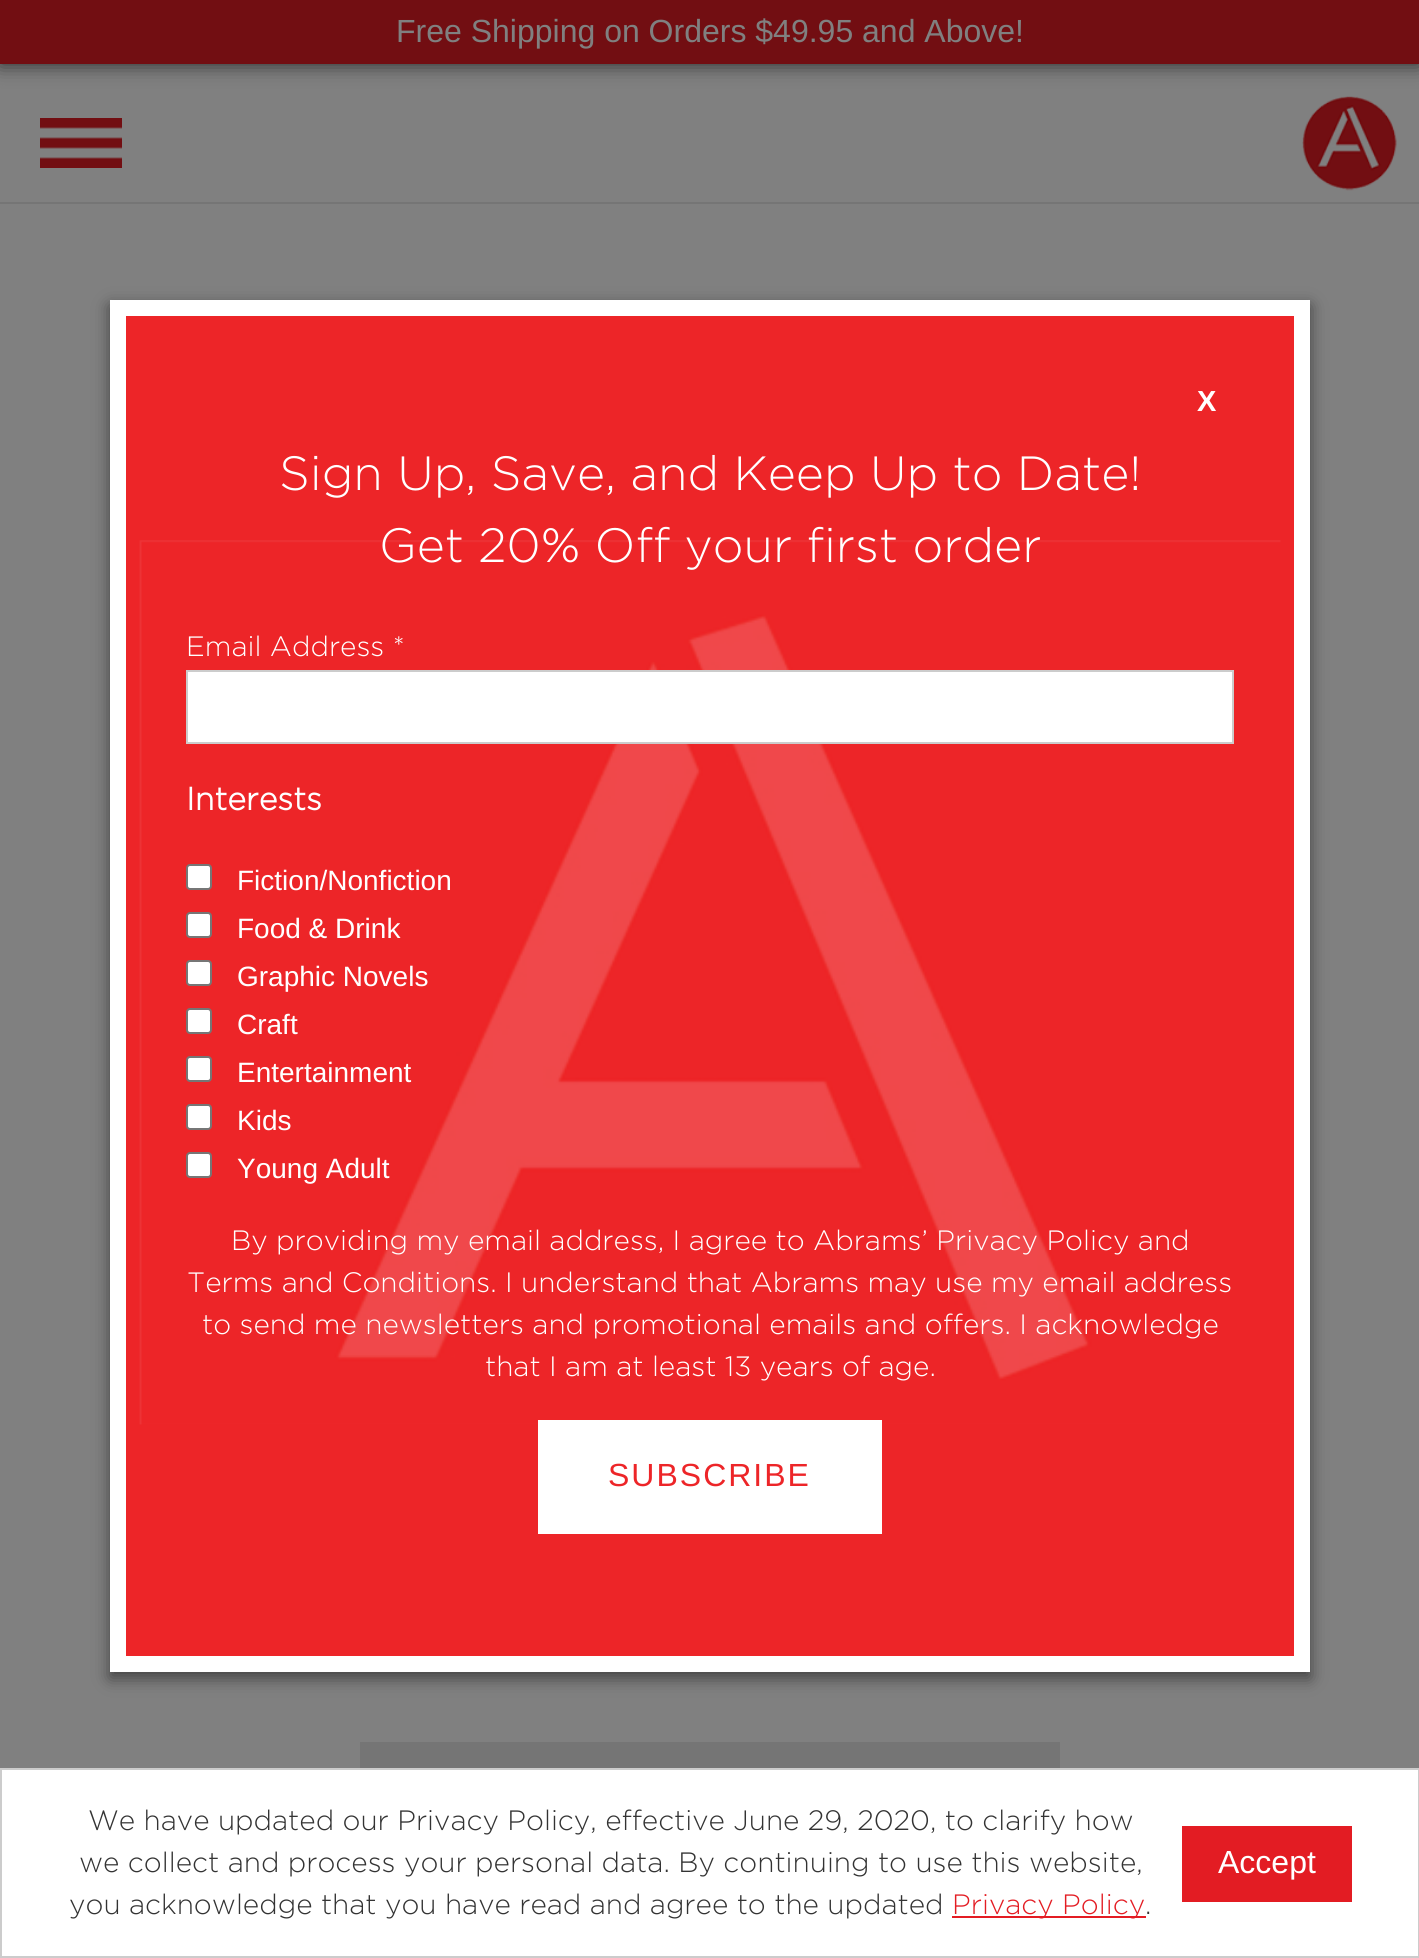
import math
import cairo

surface = cairo.ImageSurface(cairo.Format.RGB24, 1419, 1958)
ctx = cairo.Context(surface)
options = cairo.FontOptions()
options.set_hint_metrics(cairo.HintMetrics.OFF)
options.set_hint_style(cairo.HintStyle.NONE)
ctx.set_font_options(options)
ctx.set_miter_limit(4)


def ink(r, g, b):
    ctx.set_source_rgb(r / 255, g / 255, b / 255)


def write(x, y, s, family, size, color, bold=False, italic=False):
    ctx.select_font_face(family, cairo.FontSlant.ITALIC if italic else cairo.FontSlant.NORMAL, cairo.FontWeight.BOLD if bold else cairo.FontWeight.NORMAL)
    ctx.set_font_size(size)
    ink(*color)
    ctx.move_to(x, y)
    ctx.show_text(s)


def write_spaced(x, y, s, letter, word):
    ctx.move_to(x, y)
    for ch in s:
        ctx.show_text(ch)
        ctx.rel_move_to(letter + word * (ch == ' '), 0)


def block(x, y, w, h, *color):
    ink(*color)
    ctx.rectangle(x, y, w, h)
    ctx.fill()


def round_path(x, y, w, h, r):
    ctx.new_sub_path()
    for i, (u, v) in enumerate([(x + w - r, y + h - r), (x + r, y + h - r), (x + r, y + r), (x + w - r, y + r)]):
        ctx.arc(u, v, r, i * math.pi / 2, (i + 1) * math.pi / 2)
    ctx.close_path()


def blur_box(x, y, w, h, r, blur, alpha):
    ctx.push_group_with_content(cairo.Content.ALPHA)
    ctx.set_operator(cairo.Operator.SOURCE)
    for i in range(15, -16, -2):
        e = blur * i / 6
        if min(w, h) + 2 * e > 0:
            ctx.set_source_rgba(0, 0, 0, alpha * math.erfc((i - 1) / 8.5) / 2)
            round_path(x - e, y - e, w + 2 * e, h + 2 * e, max(0, min(r + e + blur * .6, min(w, h) / 2 + e)))
            ctx.fill()
    ctx.mask(ctx.pop_group())


def paste(path, x, y, w, h):
    ctx.save()
    ctx.set_source_surface(cairo.ImageSurface.create_from_png(path), x, y)
    ctx.rectangle(x, y, w, h)
    ctx.fill()
    ctx.restore()


s1 = dict(family="Liberation Sans", size=32, color=(128, 128, 128))
s2 = dict(family="Gotham Light", size=48, color=(255, 255, 255))
s3 = dict(family="Gotham Light", size=28, color=(255, 255, 255))
s4 = dict(family="Gotham", size=32, color=(255, 255, 255), bold=True)
s5 = dict(family="Liberation Sans", size=28, color=(255, 255, 255))
s6 = dict(family="Gotham Light", size=28, color=(51, 51, 51))
s7 = dict(family="Gotham Light", size=28, color=(227, 28, 35))
s8 = dict(family="Liberation Sans", size=32, color=(255, 255, 255))

ink(128, 128, 128)
ctx.paint()
ink(0, 0, 0)
blur_box(0, 0, 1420, 64, 0, 10, 0.7)
block(0, 0, 1419, 64, 114, 14, 18)
write(396, 42, "Free Shipping on Orders $49.95 and Above!", **s1)
block(0, 202, 1419, 2, 117, 117, 117)
paste("pic1.png", 40, 118, 82, 50)
paste("pic2.png", 1302, 96, 95, 95)
block(360, 1742, 700, 26, 117, 117, 117)
ink(0, 0, 0)
blur_box(110, 306, 1200, 1372, 0, 8, 0.5)
block(126, 316, 1168, 1340, 237, 37, 40)
paste("pic3.png", 139, 540, 1142, 885)
ctx.rectangle(118, 308, 1184, 1356)
ink(255, 255, 255)
ctx.set_line_width(16)
ctx.stroke()
ctx.select_font_face("Liberation Sans", cairo.FontSlant.NORMAL, cairo.FontWeight.BOLD)
ctx.set_font_size(29)
write_spaced(1197, 411, "X", 2, 0)
write(279, 490, "Sign Up, Save, and Keep Up to Date!", **s2)
write(379, 562, "Get 20% Off your first order", **s2)
write(186, 656, "Email Address *", **s3)
ctx.rectangle(187, 671, 1046, 72)
ctx.fill_preserve()
ink(204, 204, 204)
ctx.set_line_width(2)
ctx.stroke()
write(186, 810, "Interests", **s4)
round_path(187, 865, 24, 24, 3)
ctx.fill_preserve()
ink(118, 118, 118)
ctx.stroke()
write(237, 890, "Fiction/Nonfiction", **s5)
round_path(187, 913, 24, 24, 3)
ctx.fill_preserve()
ink(118, 118, 118)
ctx.stroke()
write(237, 938, "Food & Drink", **s5)
round_path(187, 961, 24, 24, 3)
ctx.fill_preserve()
ink(118, 118, 118)
ctx.stroke()
write(237, 986, "Graphic Novels", **s5)
round_path(187, 1009, 24, 24, 3)
ctx.fill_preserve()
ink(118, 118, 118)
ctx.stroke()
write(237, 1034, "Craft", **s5)
round_path(187, 1057, 24, 24, 3)
ctx.fill_preserve()
ink(118, 118, 118)
ctx.stroke()
write(237, 1082, "Entertainment", **s5)
round_path(187, 1105, 24, 24, 3)
ctx.fill_preserve()
ink(118, 118, 118)
ctx.stroke()
write(237, 1130, "Kids", **s5)
round_path(187, 1153, 24, 24, 3)
ctx.fill_preserve()
ink(118, 118, 118)
ctx.stroke()
write(237, 1178, "Young Adult", **s5)
write(231, 1250, "By providing my email address, I agree to Abrams’ Privacy Policy and", **s3)
write(187, 1292, "Terms and Conditions. I understand that Abrams may use my email address", **s3)
write(202, 1334, "to send me newsletters and promotional emails and offers. I acknowledge", **s3)
write(485, 1376, "that I am at least 13 years of age.", **s3)
block(538, 1420, 344, 114, 255, 255, 255)
ctx.select_font_face("Liberation Sans")
ctx.set_font_size(32)
ink(237, 37, 40)
write_spaced(608, 1486, "SUBSCRIBE", 2, 0)
ink(255, 255, 255)
ctx.rectangle(1, 1769, 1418, 188)
ctx.fill_preserve()
ink(204, 204, 204)
ctx.stroke()
write(88, 1830, "We have updated our Privacy Policy, effective June 29, 2020, to clarify how", **s6)
write(79, 1872, "we collect and process your personal data. By continuing to use this website,", **s6)
write(69, 1914, "you acknowledge that you have read and agree to the updated", **s6)
block(952, 1916, 194, 2, 227, 28, 35)
write(952, 1914, "Privacy Policy", **s7)
write(1145, 1914, ".", **s6)
block(1182, 1826, 170, 76, 227, 28, 35)
write(1218, 1873, "Accept", **s8)
surface.write_to_png("screenshot.png")
